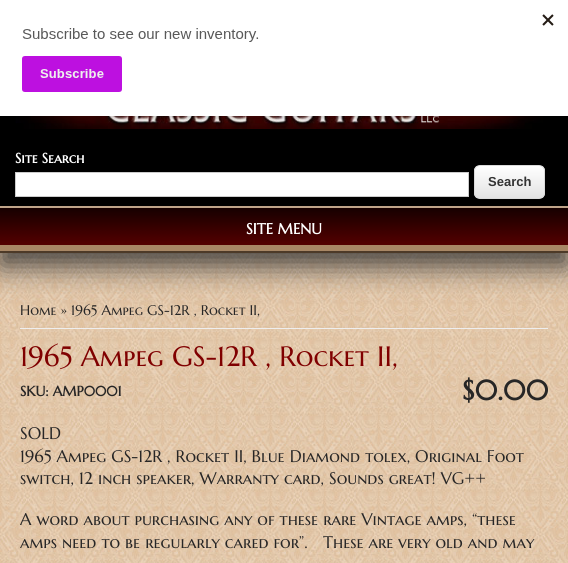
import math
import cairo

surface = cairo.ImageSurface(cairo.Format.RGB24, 568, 563)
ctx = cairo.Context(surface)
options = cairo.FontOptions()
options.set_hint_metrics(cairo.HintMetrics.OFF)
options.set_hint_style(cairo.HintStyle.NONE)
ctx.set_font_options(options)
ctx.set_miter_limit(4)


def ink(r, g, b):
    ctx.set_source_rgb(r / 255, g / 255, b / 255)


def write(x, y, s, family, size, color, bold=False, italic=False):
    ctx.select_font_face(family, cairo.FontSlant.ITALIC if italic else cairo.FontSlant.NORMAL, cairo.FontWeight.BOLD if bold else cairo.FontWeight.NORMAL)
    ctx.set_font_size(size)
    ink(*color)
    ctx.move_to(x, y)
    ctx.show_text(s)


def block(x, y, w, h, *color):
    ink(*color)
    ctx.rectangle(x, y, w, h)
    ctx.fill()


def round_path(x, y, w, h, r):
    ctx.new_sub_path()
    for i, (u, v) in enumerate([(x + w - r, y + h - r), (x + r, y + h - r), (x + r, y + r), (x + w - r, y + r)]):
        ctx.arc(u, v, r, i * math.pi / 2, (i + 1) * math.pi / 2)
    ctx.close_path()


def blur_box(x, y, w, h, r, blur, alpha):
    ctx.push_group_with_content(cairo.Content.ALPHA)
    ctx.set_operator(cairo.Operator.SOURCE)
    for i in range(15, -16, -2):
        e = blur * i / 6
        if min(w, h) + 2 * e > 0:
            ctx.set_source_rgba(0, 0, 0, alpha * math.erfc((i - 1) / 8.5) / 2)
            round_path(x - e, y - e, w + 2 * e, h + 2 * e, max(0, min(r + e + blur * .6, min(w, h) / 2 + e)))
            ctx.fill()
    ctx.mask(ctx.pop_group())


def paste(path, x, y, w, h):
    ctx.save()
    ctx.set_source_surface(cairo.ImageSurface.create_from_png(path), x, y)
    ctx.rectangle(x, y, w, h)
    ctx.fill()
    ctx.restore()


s1 = dict(family="Marcellus SC", size=14, color=(255, 255, 255), bold=True)
s2 = dict(family="Liberation Sans", size=13, color=(51, 51, 51), bold=True)
s3 = dict(family="Marcellus SC", size=15, color=(255, 255, 255), bold=True)
s4 = dict(family="Marcellus SC", size=14, color=(39, 38, 38))
s5 = dict(family="Marcellus SC", size=28, color=(128, 0, 0))
s6 = dict(family="Marcellus SC", size=14, color=(39, 38, 38), bold=True)
s7 = dict(family="Marcellus SC", size=28, color=(39, 38, 38), bold=True)
s8 = dict(family="Marcellus SC", size=16.8, color=(39, 38, 38))

ink(255, 255, 255)
ctx.paint()
paste("pic1.png", 0, 253, 568, 310)
ink(50, 50, 50)
blur_box(0, 13, 568, 253, 0, 15, 0.9)
block(0, 116, 568, 90, 0, 0, 0)
paste("pic3.png", 8, 116, 548, 13)
ink(0, 0, 0)
blur_box(0, 3, 568, 116, 0, 3, 0.2)
block(0, 0, 568, 116, 255, 255, 255)
paste("pic2.png", 22, 14, 532, 78)
write(15, 163, "Site Search", **s1)
ctx.rectangle(15.5, 172.5, 453, 24)
ctx.fill_preserve()
ink(204, 204, 204)
ctx.set_line_width(1)
ctx.stroke()
ctx.save()
round_path(474, 165, 71, 34, 6)
ctx.clip()
gradient = cairo.LinearGradient(510, 166, 510, 198)
gradient.add_color_stop_rgba(0, 1, 1, 1, 1)
gradient.add_color_stop_rgba(1, 0.89, 0.89, 0.89, 1)
ctx.set_source(gradient)
ctx.rectangle(474, 166, 71, 32)
ctx.fill()
ctx.restore()
ink(255, 255, 255)
ctx.new_path()
ctx.move_to(480, 167)
ctx.line_to(539, 167)
ctx.curve_to(542, 167, 544, 169, 544, 172)
ctx.curve_to(544, 164, 535, 166, 529, 166)
ctx.line_to(490, 166)
ctx.curve_to(484, 166, 475, 164, 475, 172)
ctx.curve_to(475, 169, 477, 167, 480, 167)
ctx.close_path()
ctx.fill()
round_path(474.5, 165.5, 70, 33, 5.5)
ink(219, 219, 219)
ctx.stroke()
write(488, 186, "Search", **s2)
block(0, 206, 568, 2, 191, 164, 137)
block(0, 251, 568, 2, 77, 58, 40)
block(0, 245, 568, 6, 168, 135, 101)
paste("pic4.png", 0, 208, 568, 37)
write(246, 234, "SITE MENU", **s3)
block(20, 328, 528, 1, 238, 238, 238)
write(20, 315, "Home » 1965 Ampeg GS-12R , Rocket II,", **s4)
write(20, 366, "1965 Ampeg GS-12R , Rocket II,", **s5)
write(20, 396, "SKU: AMP0001", **s6)
write(462, 400, "$0.00", **s7)
write(20, 439, "SOLD", **s8)
write(20, 462, "1965 Ampeg GS-12R , Rocket II, Blue Diamond tolex, Original Foot", **s8)
write(20, 484, "switch, 12 inch speaker, Warranty card, Sounds great! VG++", **s8)
write(20, 525, "A word about purchasing any of these rare Vintage amps, “these", **s8)
write(20, 548, "amps need to be regularly cared for”.   These are very old and may", **s8)
surface.write_to_png("screenshot.png")
